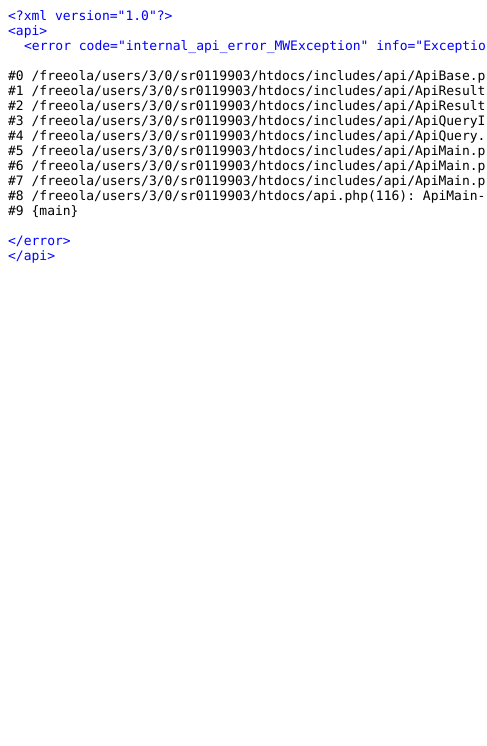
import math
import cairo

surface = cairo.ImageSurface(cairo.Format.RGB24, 487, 746)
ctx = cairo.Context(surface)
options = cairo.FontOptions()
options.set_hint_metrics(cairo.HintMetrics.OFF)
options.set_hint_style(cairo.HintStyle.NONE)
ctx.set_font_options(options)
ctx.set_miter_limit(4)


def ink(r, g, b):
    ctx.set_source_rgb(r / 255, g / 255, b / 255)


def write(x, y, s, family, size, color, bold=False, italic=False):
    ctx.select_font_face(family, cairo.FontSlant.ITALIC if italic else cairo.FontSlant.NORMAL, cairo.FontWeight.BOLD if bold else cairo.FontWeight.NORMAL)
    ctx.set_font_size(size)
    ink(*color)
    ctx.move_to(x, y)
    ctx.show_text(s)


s1 = dict(family="DejaVu Sans Mono", size=13, color=(0, 0, 255))
s2 = dict(family="DejaVu Sans Mono", size=13, color=(0, 0, 0))

ink(255, 255, 255)
ctx.paint()
write(8, 20, "<?xml version=\"1.0\"?>", **s1)
write(8, 35, "<api>", **s1)
write(24, 50, "<error code=\"internal_api_error_MWException\" info=\"Exceptio", **s1)
write(8, 80, "#0 /freeola/users/3/0/sr0119903/htdocs/includes/api/ApiBase.p", **s2)
write(8, 95, "#1 /freeola/users/3/0/sr0119903/htdocs/includes/api/ApiResult", **s2)
write(8, 110, "#2 /freeola/users/3/0/sr0119903/htdocs/includes/api/ApiResult", **s2)
write(8, 125, "#3 /freeola/users/3/0/sr0119903/htdocs/includes/api/ApiQueryI", **s2)
write(8, 140, "#4 /freeola/users/3/0/sr0119903/htdocs/includes/api/ApiQuery.", **s2)
write(8, 155, "#5 /freeola/users/3/0/sr0119903/htdocs/includes/api/ApiMain.p", **s2)
write(8, 170, "#6 /freeola/users/3/0/sr0119903/htdocs/includes/api/ApiMain.p", **s2)
write(8, 185, "#7 /freeola/users/3/0/sr0119903/htdocs/includes/api/ApiMain.p", **s2)
write(8, 200, "#8 /freeola/users/3/0/sr0119903/htdocs/api.php(116): ApiMain-", **s2)
write(8, 215, "#9 {main}", **s2)
write(8, 245, "</error>", **s1)
write(8, 260, "</api>", **s1)
surface.write_to_png("screenshot.png")
